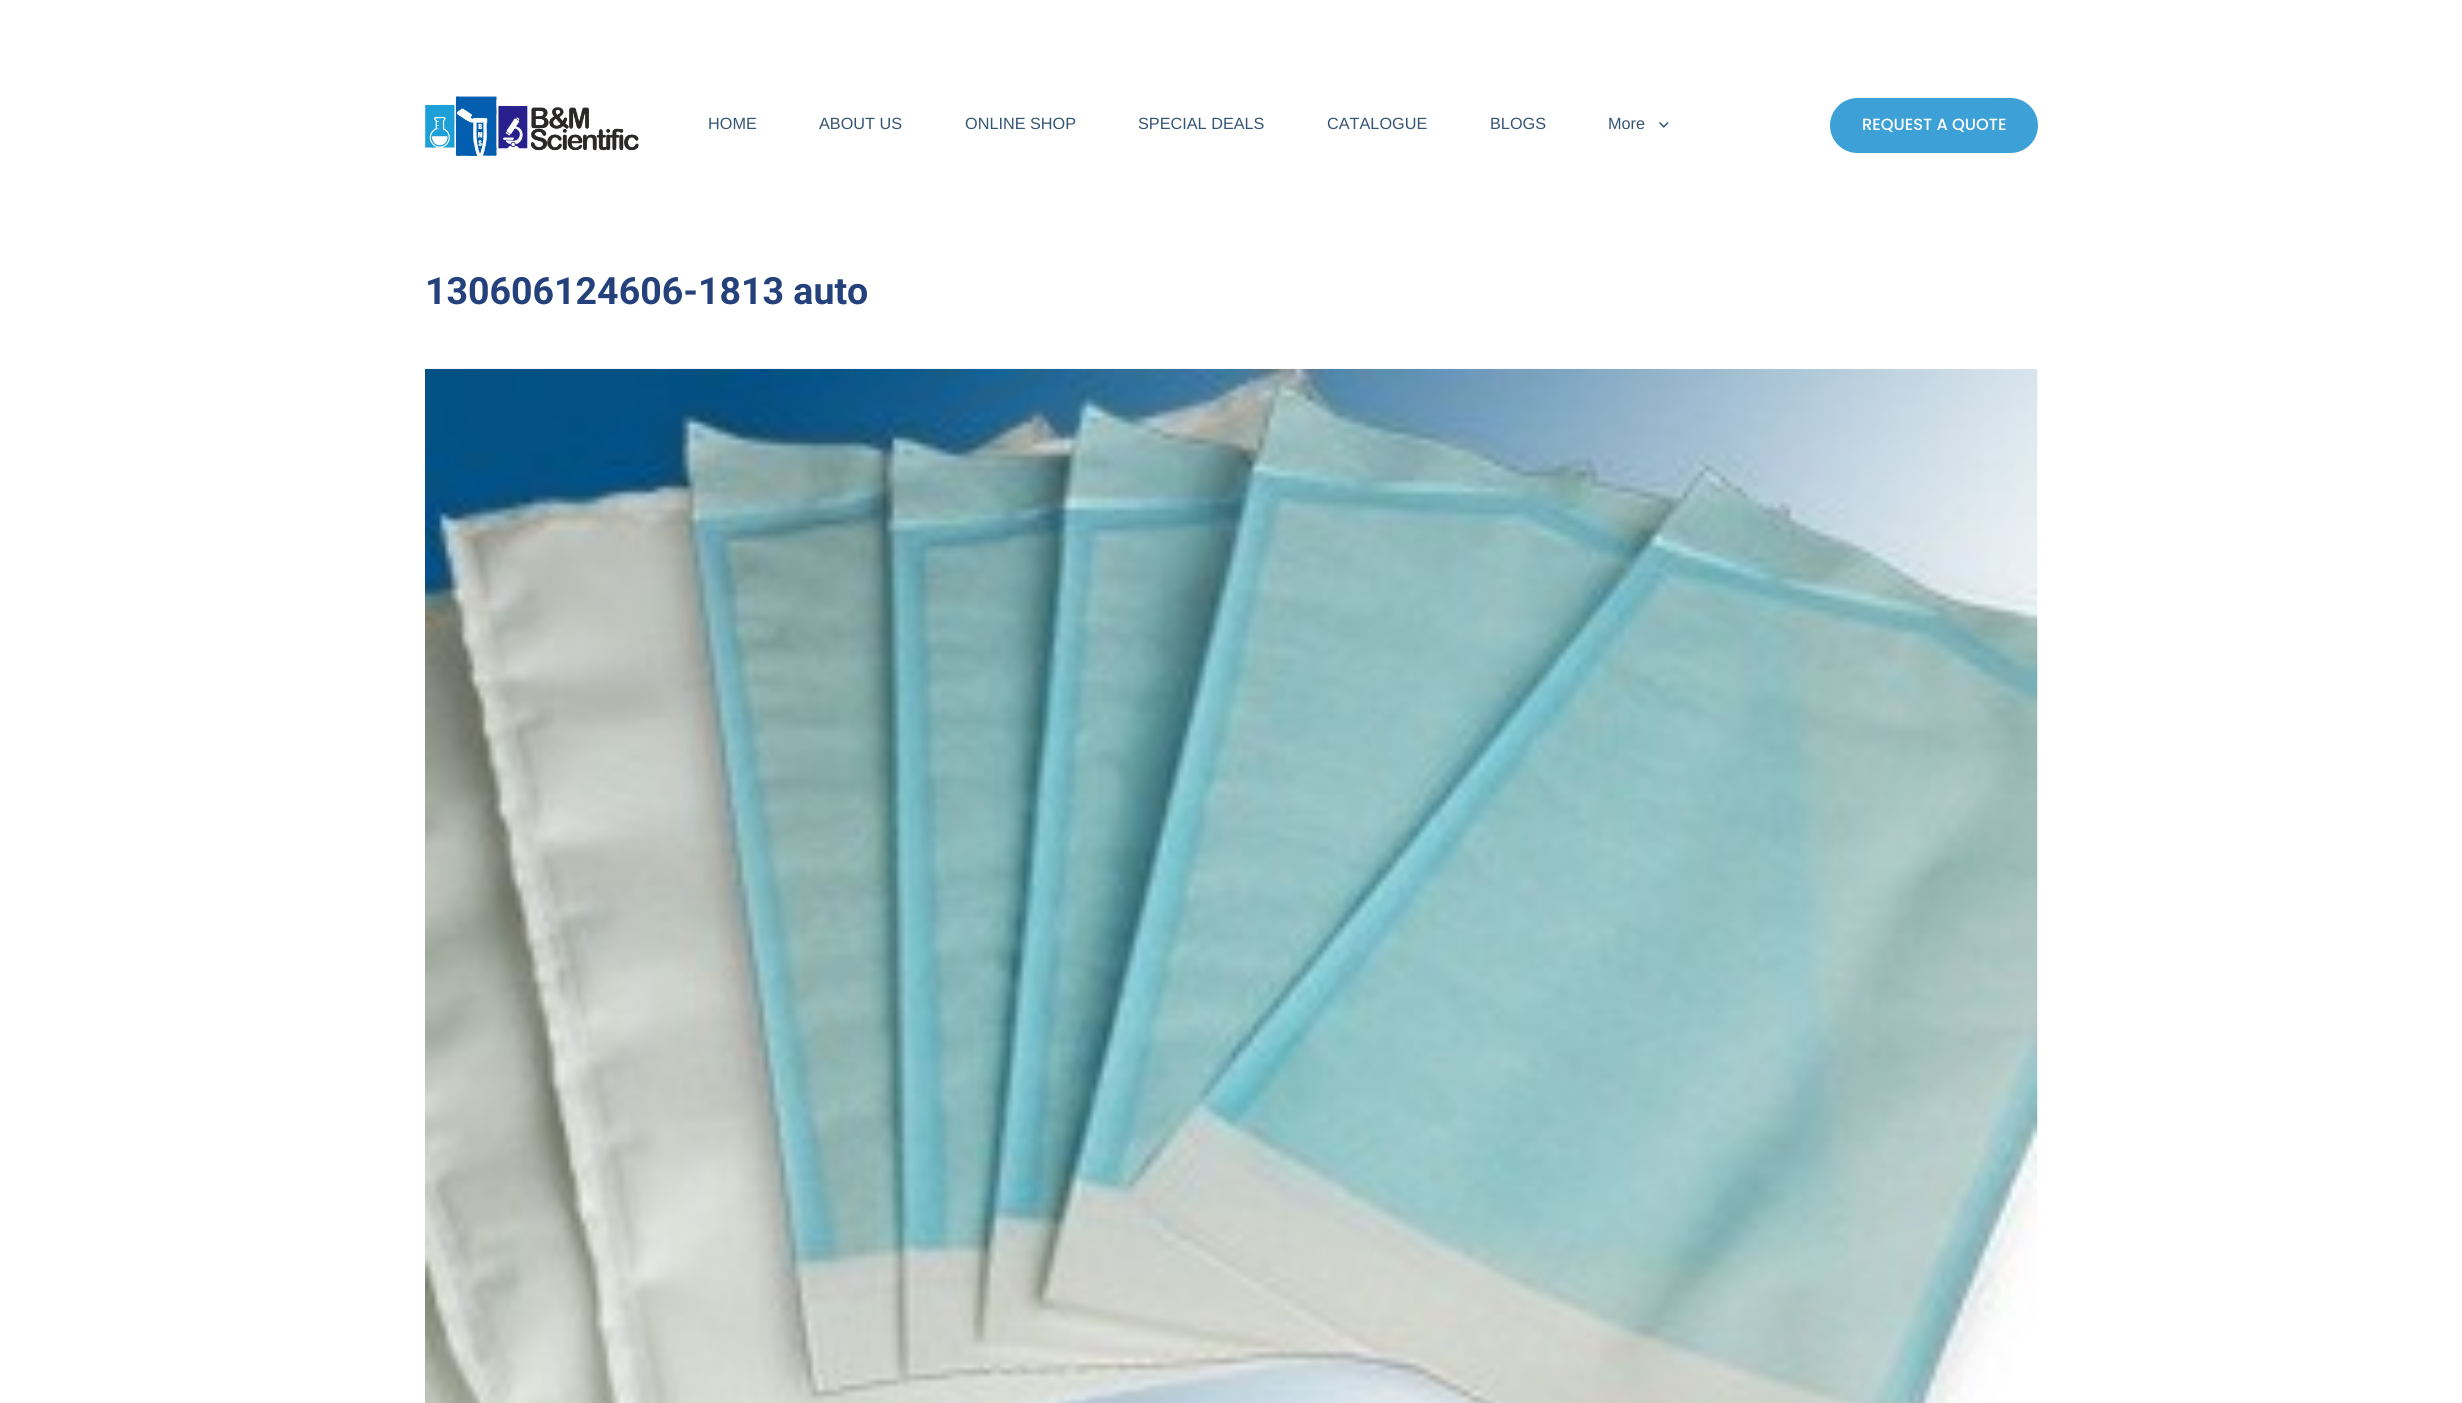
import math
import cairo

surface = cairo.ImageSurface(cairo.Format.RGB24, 2462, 1403)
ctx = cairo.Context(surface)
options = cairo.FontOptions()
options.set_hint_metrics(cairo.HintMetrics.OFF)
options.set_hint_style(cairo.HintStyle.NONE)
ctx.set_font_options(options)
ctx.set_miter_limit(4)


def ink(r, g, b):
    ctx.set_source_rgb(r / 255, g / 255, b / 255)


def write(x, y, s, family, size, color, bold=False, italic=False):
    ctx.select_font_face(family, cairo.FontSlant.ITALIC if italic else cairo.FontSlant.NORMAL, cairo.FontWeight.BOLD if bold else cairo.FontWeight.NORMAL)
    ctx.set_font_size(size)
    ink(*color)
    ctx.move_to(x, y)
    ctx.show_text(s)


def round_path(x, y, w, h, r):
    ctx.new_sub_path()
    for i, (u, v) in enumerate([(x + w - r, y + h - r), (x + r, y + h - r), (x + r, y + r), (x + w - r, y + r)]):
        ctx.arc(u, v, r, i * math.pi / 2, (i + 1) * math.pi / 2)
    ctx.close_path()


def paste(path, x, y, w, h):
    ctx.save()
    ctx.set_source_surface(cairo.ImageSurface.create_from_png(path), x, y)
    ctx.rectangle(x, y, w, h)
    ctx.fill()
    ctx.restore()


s1 = dict(family="Liberation Sans", size=16.25, color=(53, 85, 117))
s2 = dict(family="Poppins Medium", size=16.25, color=(254, 254, 254))
s3 = dict(family="Roboto", size=37.5, color=(36, 65, 124), bold=True)

ink(255, 255, 255)
ctx.paint()
paste("pic1.png", 425, 96, 214, 61)
write(708, 129, "HOME", **s1)
write(819, 129, "ABOUT US", **s1)
write(965, 129, "ONLINE SHOP", **s1)
write(1138, 129, "SPECIAL DEALS", **s1)
write(1327, 129, "CATALOGUE", **s1)
write(1490, 129, "BLOGS", **s1)
write(1608, 129, "More", **s1)
paste("pic2.png", 1659, 122, 10, 6)
ink(61, 161, 215)
round_path(1830, 98, 208, 55, 27.5)
ctx.fill()
write(1862, 130, "REQUEST A QUOTE", **s2)
write(425, 304, "130606124606-1813 auto", **s3)
paste("pic3.png", 425, 368, 1613, 1035)
surface.write_to_png("screenshot.png")
